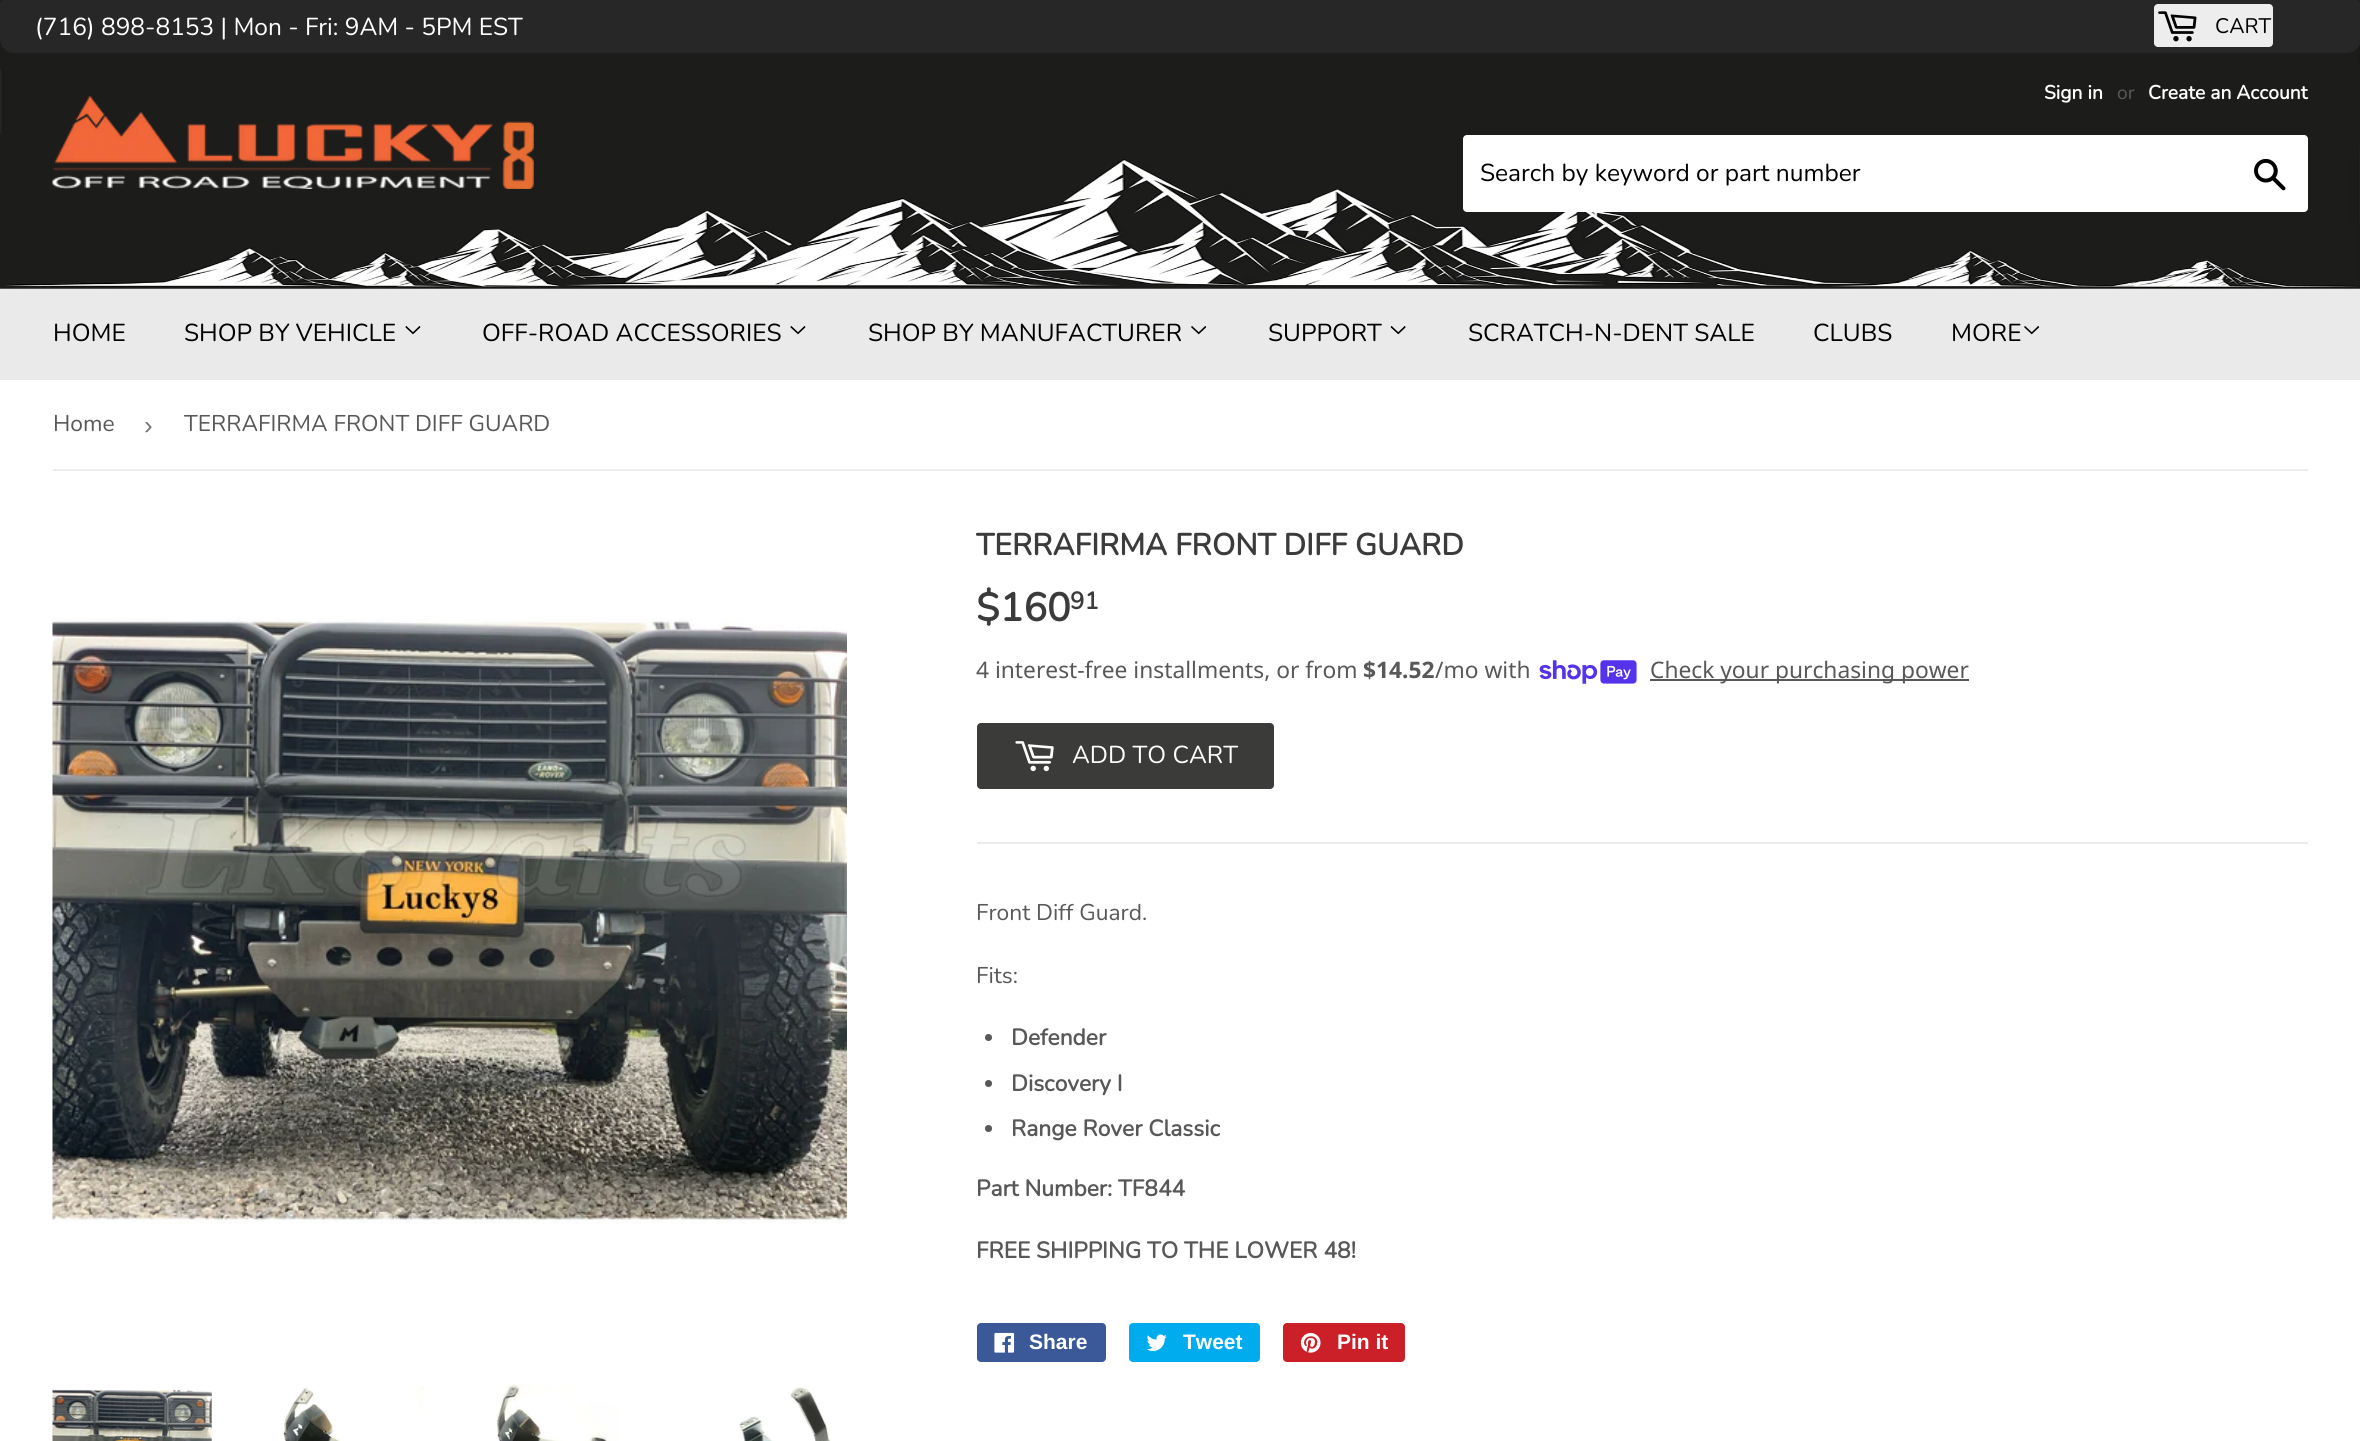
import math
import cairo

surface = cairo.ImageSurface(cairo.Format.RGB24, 2360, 1441)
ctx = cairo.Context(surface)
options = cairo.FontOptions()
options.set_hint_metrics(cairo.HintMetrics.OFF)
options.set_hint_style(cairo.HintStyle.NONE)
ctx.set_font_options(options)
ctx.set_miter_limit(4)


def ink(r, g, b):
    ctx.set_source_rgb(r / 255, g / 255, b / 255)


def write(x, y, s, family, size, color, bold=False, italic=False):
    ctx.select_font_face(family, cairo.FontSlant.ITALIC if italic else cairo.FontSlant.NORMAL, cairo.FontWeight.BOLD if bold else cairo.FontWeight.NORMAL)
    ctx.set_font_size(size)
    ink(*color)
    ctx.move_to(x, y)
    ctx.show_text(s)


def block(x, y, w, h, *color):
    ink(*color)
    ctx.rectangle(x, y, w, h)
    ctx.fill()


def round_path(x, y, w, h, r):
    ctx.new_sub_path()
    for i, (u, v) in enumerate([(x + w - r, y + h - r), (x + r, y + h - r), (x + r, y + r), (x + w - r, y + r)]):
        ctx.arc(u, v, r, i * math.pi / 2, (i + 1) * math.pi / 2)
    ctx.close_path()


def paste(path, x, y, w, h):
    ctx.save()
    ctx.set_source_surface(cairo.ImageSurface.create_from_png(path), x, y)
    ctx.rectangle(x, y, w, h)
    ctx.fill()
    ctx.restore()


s1 = dict(family="Nunito ExtraLight", size=24.5, color=(255, 255, 255))
s2 = dict(family="Nunito ExtraLight", size=21, color=(0, 0, 0))
s3 = dict(family="Nunito", size=19.25, color=(255, 255, 255), bold=True)
s4 = dict(family="Nunito ExtraLight", size=19.25, color=(88, 88, 88))
s5 = dict(family="Nunito ExtraLight", size=24.5, color=(0, 0, 0))
s6 = dict(family="Nunito ExtraLight", size=22.75, color=(88, 88, 88))
s7 = dict(family="Liberation Sans", size=26, color=(118, 118, 118))
s8 = dict(family="Nunito", size=30.3, color=(59, 59, 59), bold=True)
s9 = dict(family="Nunito", size=39.5, color=(59, 59, 59), bold=True)
s10 = dict(family="Nunito", size=24, color=(59, 59, 59), bold=True)
s11 = dict(family="Noto Sans", size=22.75, color=(88, 88, 88))
s12 = dict(family="Noto Sans", size=22.75, color=(88, 88, 88), bold=True)
s13 = dict(family="Nunito", size=22.75, color=(88, 88, 88), bold=True)
s14 = dict(family="Liberation Sans", size=21, color=(255, 255, 255), bold=True)

ink(255, 255, 255)
ctx.paint()
paste("pic2.png", 0, 0, 2360, 289)
ink(39, 39, 39)
ctx.new_path()
ctx.move_to(4, 0)
ctx.line_to(2357, 0)
ctx.curve_to(2359, 0, 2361, 2, 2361, 4)
ctx.line_to(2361, 39)
ctx.curve_to(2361, 46.5, 2354.5, 53, 2347, 53)
ctx.line_to(14, 53)
ctx.curve_to(6.5, 53, 0, 46.5, 0, 39)
ctx.line_to(0, 4)
ctx.curve_to(0, 2, 2, 0, 4, 0)
ctx.close_path()
ctx.fill()
write(35, 35, "(716) 898-8153 | Mon - Fri: 9AM - 5PM EST", **s1)
ink(237, 237, 237)
round_path(2154, 4, 119, 43, 4)
ctx.fill()
paste("pic1.png", 2158, 11, 39, 31)
write(2215, 33, "CART", **s2)
paste("pic3.png", 52, 96, 482, 93)
write(2044, 99, "Sign in", **s3)
write(2117, 99, "or", **s4)
write(2148, 99, "Create an Account", **s3)
round_path(1463, 135, 845, 77, 4)
ctx.fill()
write(1480, 181, "Search by keyword or part number", **s5)
paste("pic4.png", 2254, 158, 32, 33)
block(0, 289, 2360, 91, 234, 234, 234)
write(53, 341, "HOME", **s5)
write(184, 341, "SHOP BY VEHICLE", **s5)
paste("pic5.png", 405, 326, 16, 9)
write(482, 341, "OFF-ROAD ACCESSORIES", **s5)
paste("pic5.png", 790, 326, 16, 9)
write(868, 341, "SHOP BY MANUFACTURER", **s5)
paste("pic6.png", 1191, 326, 16, 9)
write(1268, 341, "SUPPORT", **s5)
paste("pic7.png", 1390, 326, 16, 9)
write(1468, 341, "SCRATCH-N-DENT SALE", **s5)
write(1813, 341, "CLUBS", **s5)
write(1951, 341, "MORE", **s5)
paste("pic6.png", 2024, 326, 16, 9)
block(53, 469, 2255, 2, 236, 236, 236)
write(53, 431, "Home", **s6)
write(144, 434, "›", **s7)
write(184, 431, "TERRAFIRMA FRONT DIFF GUARD", **s6)
paste("pic8.png", 52, 618, 795, 606)
paste("pic9.png", 52, 1388, 160, 53)
paste("pic10.png", 282, 1386, 142, 55)
paste("pic11.png", 494, 1384, 124, 57)
paste("pic12.png", 739, 1386, 92, 55)
write(976, 555, "TERRAFIRMA FRONT DIFF GUARD", **s8)
write(976, 621, "$160", **s9)
write(1070, 609, "91", **s10)
write(976, 678, "4 interest-free installments, or from", **s11)
write(1363, 678, "$14.52", **s12)
write(1435, 678, "/mo with", **s11)
paste("pic13.png", 1539, 660, 98, 24)
block(1650, 679, 319, 2, 88, 88, 88)
write(1650, 678, "Check your purchasing power", **s11)
ink(59, 59, 57)
round_path(977, 723, 297, 66, 4)
ctx.fill()
paste("pic14.png", 1015, 741, 39, 31)
write(1072, 763, "ADD TO CART", **s1)
block(977, 842, 1331, 2, 236, 236, 236)
write(976, 920, "Front Diff Guard.", **s6)
write(976, 983, "Fits:", **s6)
ctx.new_path()
ctx.arc(988.5, 1037.5, 3.5, 0, 2 * math.pi)
ctx.fill()
write(1011, 1045, "Defender", **s13)
ctx.new_path()
ctx.arc(988.5, 1083.5, 3.5, 0, 2 * math.pi)
ctx.fill()
write(1011, 1091, "Discovery I", **s13)
ctx.new_path()
ctx.arc(988.5, 1128.5, 3.5, 0, 2 * math.pi)
ctx.fill()
write(1011, 1136, "Range Rover Classic", **s13)
write(976, 1196, "Part Number: TF844", **s13)
write(976, 1258, "FREE SHIPPING TO THE LOWER 48!", **s13)
ink(59, 89, 152)
round_path(977, 1323, 129, 39, 4)
ctx.fill()
paste("pic15.png", 994, 1332, 21, 21)
write(1029, 1349, "Share", **s14)
ink(0, 172, 237)
round_path(1129, 1323, 131, 39, 4)
ctx.fill()
paste("pic16.png", 1146, 1334, 21, 17)
write(1183, 1349, "Tweet", **s14)
ink(203, 32, 39)
round_path(1283, 1323, 122, 39, 4)
ctx.fill()
paste("pic17.png", 1300, 1333, 21, 20)
write(1337, 1349, "Pin it", **s14)
surface.write_to_png("screenshot.png")
